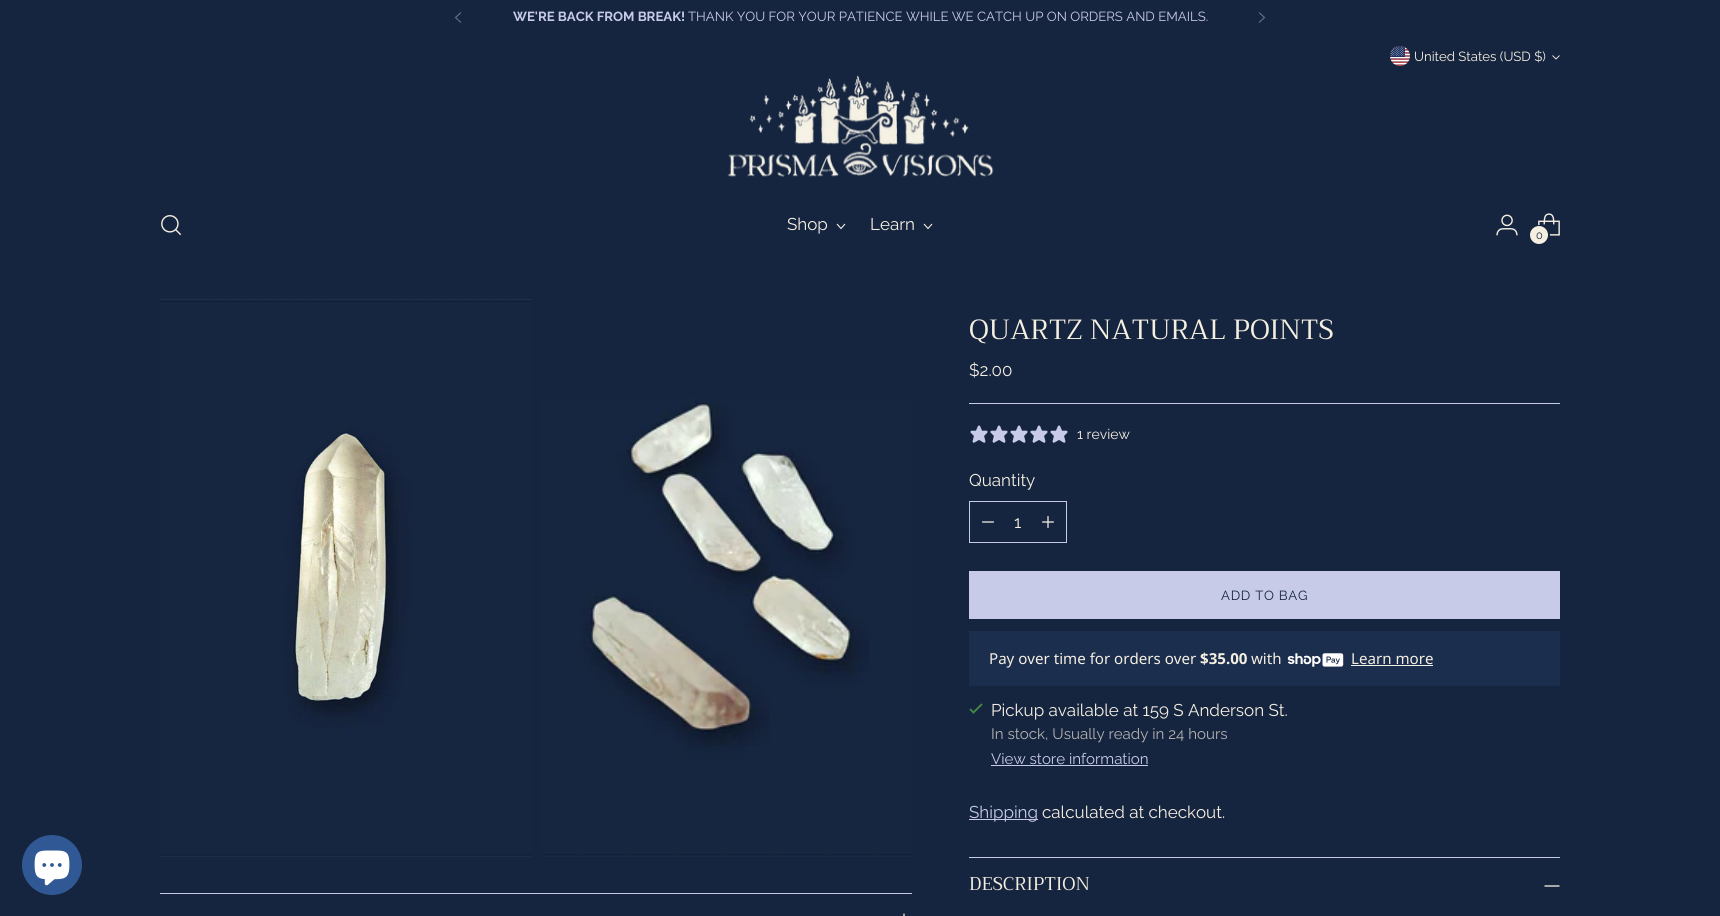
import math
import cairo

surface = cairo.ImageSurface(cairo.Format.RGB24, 1720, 916)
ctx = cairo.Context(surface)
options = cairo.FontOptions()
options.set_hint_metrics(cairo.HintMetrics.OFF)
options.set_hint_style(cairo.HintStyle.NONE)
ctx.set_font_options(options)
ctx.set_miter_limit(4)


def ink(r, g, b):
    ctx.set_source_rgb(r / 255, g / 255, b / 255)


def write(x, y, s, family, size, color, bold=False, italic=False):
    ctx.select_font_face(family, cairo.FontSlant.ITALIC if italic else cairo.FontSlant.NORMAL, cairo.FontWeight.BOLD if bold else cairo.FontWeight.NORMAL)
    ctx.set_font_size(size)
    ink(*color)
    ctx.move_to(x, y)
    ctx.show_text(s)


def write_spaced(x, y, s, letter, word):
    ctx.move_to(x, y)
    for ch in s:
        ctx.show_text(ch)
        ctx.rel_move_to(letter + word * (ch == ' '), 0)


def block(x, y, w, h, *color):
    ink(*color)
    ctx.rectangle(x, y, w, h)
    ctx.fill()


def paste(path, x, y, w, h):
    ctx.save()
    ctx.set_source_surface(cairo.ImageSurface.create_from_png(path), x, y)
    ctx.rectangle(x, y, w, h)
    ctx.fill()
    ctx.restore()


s1 = dict(family="Raleway", size=13.2, color=(199, 203, 231), bold=True)
s2 = dict(family="Raleway Thin", size=13.2, color=(199, 203, 231))
s3 = dict(family="Raleway Thin", size=13.2, color=(245, 239, 226))
s4 = dict(family="Raleway Thin", size=17, color=(245, 239, 226))
s5 = dict(family="Raleway Thin", size=11, color=(22, 37, 63))
s6 = dict(family="Trirong", size=27.75, color=(245, 239, 226))
s7 = dict(family="Raleway Thin", size=14, color=(245, 239, 226))
s8 = dict(family="Noto Sans", size=15.1, color=(245, 239, 226))
s9 = dict(family="Noto Sans", size=15.1, color=(245, 239, 226), bold=True)
s10 = dict(family="Raleway Thin", size=15.1, color=(178, 178, 177))
s11 = dict(family="Raleway Thin", size=15.1, color=(199, 203, 231))
s12 = dict(family="Raleway Thin", size=17, color=(199, 203, 231))
s13 = dict(family="Trirong", size=18.5, color=(245, 239, 226))

ink(22, 37, 63)
ctx.paint()
ink(48, 88, 148)
ctx.arc(52, 865, 30, 0, 2 * math.pi)
ctx.fill()
paste("pic1.png", 34, 850, 36, 36)
write(513, 21, "WE'RE BACK FROM BREAK!", **s1)
write(688, 21, "THANK YOU FOR YOUR PATIENCE WHILE WE CATCH UP ON ORDERS AND EMAILS.", **s2)
ctx.new_path()
ctx.move_to(461, 12.5)
ctx.line_to(455.5, 17.5)
ctx.line_to(461, 22.5)
ink(111, 120, 147)
ctx.set_line_width(1)
ctx.stroke()
ctx.new_path()
ctx.move_to(1259, 22.5)
ctx.line_to(1264.5, 17.5)
ctx.line_to(1259, 12.5)
ctx.stroke()
paste("pic2.png", 1390, 46, 20, 20)
write(1414, 61, "United States (USD $)", **s3)
ctx.new_path()
ctx.move_to(1552.5, 55.5)
ctx.line_to(1556, 59)
ctx.line_to(1559.5, 55.5)
ctx.set_line_width(0.9)
ctx.stroke()
paste("pic3.png", 727, 75, 267, 102)
paste("pic4.png", 161, 215, 21, 21)
write(787, 230, "Shop", **s4)
ctx.new_path()
ctx.move_to(837, 224)
ctx.line_to(841, 228.5)
ctx.line_to(845, 224)
ctx.set_line_width(1.1)
ctx.stroke()
write(870, 230, "Learn", **s4)
ctx.new_path()
ctx.move_to(924, 224)
ctx.line_to(928, 228.5)
ctx.line_to(932, 224)
ctx.stroke()
paste("pic5.png", 1496, 214, 22, 22)
paste("pic6.png", 1538, 213, 22, 23)
ctx.arc(1539.5, 235.5, 9.5, 0, 2 * math.pi)
ink(22, 37, 63)
ctx.set_line_width(2)
ctx.stroke()
ink(245, 239, 226)
ctx.arc(1539, 235, 9, 0, 2 * math.pi)
ctx.fill()
write(1536, 239, "0", **s5)
paste("pic7.png", 160, 299, 372, 558)
paste("pic8.png", 540, 398, 372, 459)
block(160, 893, 752, 1, 199, 203, 231)
paste("pic9.png", 903, 913, 2, 3)
block(969, 403, 591, 1, 199, 203, 231)
write(969, 339, "QUARTZ NATURAL POINTS", **s6)
write(969, 376, "$2.00", **s4)
paste("pic10.png", 970, 425, 18, 18)
paste("pic10.png", 990, 425, 18, 18)
paste("pic10.png", 1010, 425, 18, 18)
paste("pic10.png", 1030, 425, 18, 18)
paste("pic10.png", 1050, 425, 18, 18)
write(1077, 439, "1 review", **s7)
write(969, 486, "Quantity", **s4)
ctx.rectangle(969.5, 501.5, 97, 41)
ink(199, 203, 231)
ctx.set_line_width(1)
ctx.stroke()
paste("pic11.png", 982, 521, 12, 2)
write(1014, 528, "1", **s4)
paste("pic12.png", 1042, 516, 12, 12)
ctx.save()
ctx.rectangle(969, 571, 591, 48)
ctx.clip()
ink(199, 203, 231)
ctx.new_path()
ctx.move_to(866, 571)
ctx.line_to(1635, 571)
ctx.line_to(1663, 619)
ctx.line_to(894, 619)
ctx.close_path()
ctx.fill()
ctx.restore()
ctx.set_font_size(13.2)
ink(22, 37, 63)
write_spaced(1221, 600, "ADD TO BAG", 0.75, 0)
block(969, 631, 591, 55, 27, 46, 78)
write(989, 664, "Pay over time for orders over", **s8)
write(1200, 664, "$35.00", **s9)
write(1251, 664, "with", **s8)
paste("pic13.png", 1287, 653, 57, 14)
write(1351, 664, "Learn more", **s8)
block(1351, 665, 82, 1, 245, 239, 226)
ctx.new_path()
ctx.move_to(970, 709)
ctx.line_to(973.5, 712.5)
ctx.line_to(982, 704)
ink(71, 137, 71)
ctx.set_line_width(1.8)
ctx.stroke()
write(991, 716, "Pickup available at 159 S Anderson St.", **s4)
write(991, 739, "In stock, Usually ready in 24 hours", **s10)
write(991, 764, "View store information", **s11)
block(991, 765, 157, 1, 199, 203, 231)
block(969, 819, 69, 1, 199, 203, 231)
write(969, 818, "Shipping", **s12)
write(1042, 818, "calculated at checkout.", **s4)
block(969, 857, 591, 1, 199, 203, 231)
write(969, 890, "DESCRIPTION", **s13)
ctx.new_path()
ctx.move_to(1544.5, 886)
ctx.line_to(1559.5, 886)
ctx.set_line_width(1.3)
ctx.stroke()
surface.write_to_png("screenshot.png")
